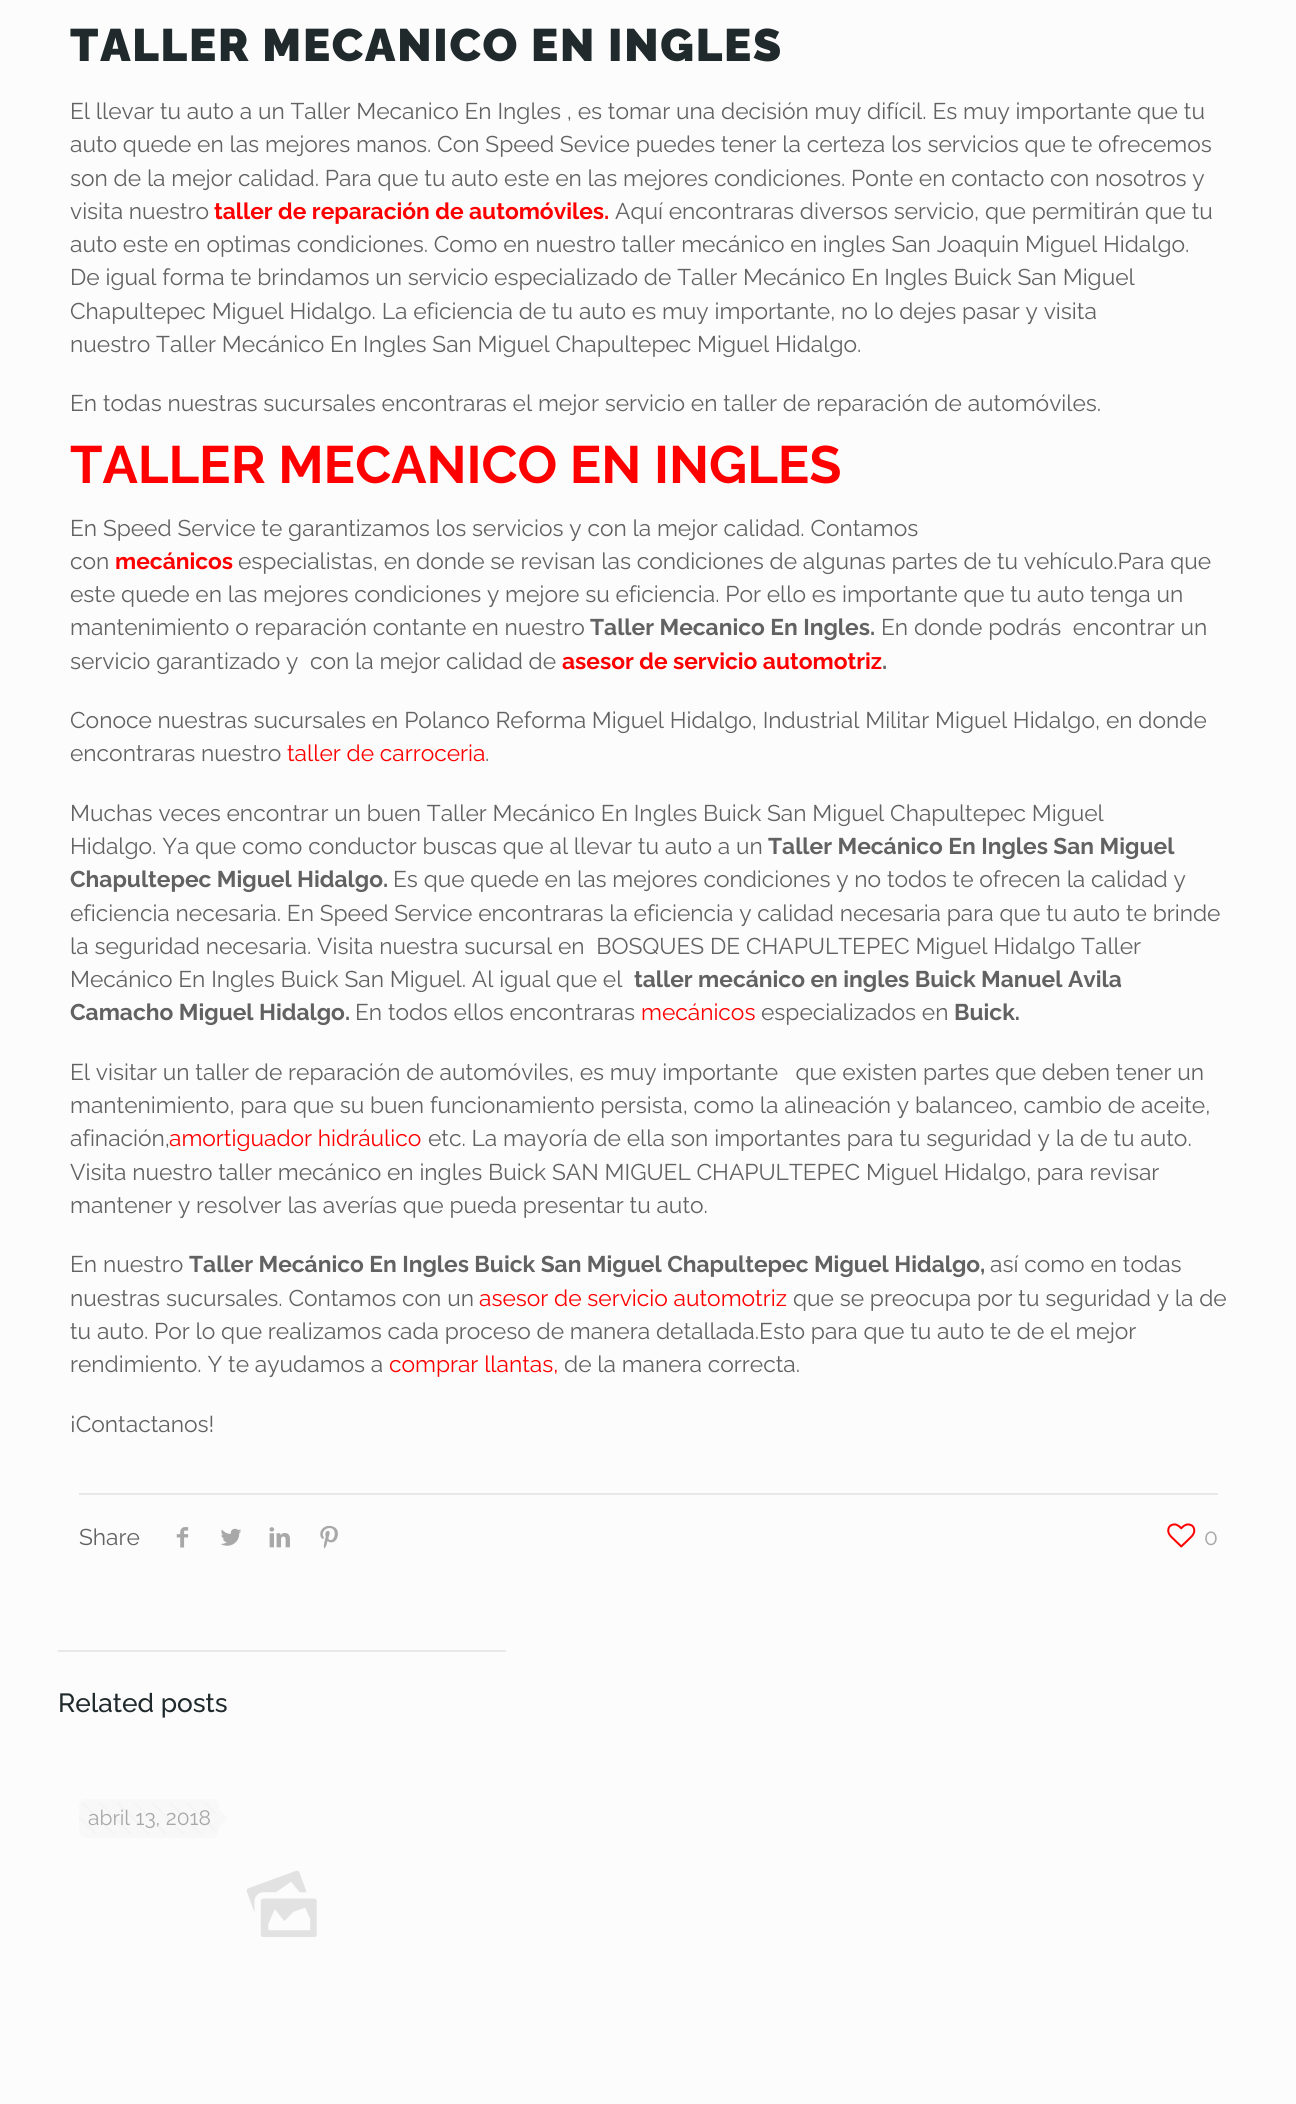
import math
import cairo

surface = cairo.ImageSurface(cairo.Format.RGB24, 1296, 2104)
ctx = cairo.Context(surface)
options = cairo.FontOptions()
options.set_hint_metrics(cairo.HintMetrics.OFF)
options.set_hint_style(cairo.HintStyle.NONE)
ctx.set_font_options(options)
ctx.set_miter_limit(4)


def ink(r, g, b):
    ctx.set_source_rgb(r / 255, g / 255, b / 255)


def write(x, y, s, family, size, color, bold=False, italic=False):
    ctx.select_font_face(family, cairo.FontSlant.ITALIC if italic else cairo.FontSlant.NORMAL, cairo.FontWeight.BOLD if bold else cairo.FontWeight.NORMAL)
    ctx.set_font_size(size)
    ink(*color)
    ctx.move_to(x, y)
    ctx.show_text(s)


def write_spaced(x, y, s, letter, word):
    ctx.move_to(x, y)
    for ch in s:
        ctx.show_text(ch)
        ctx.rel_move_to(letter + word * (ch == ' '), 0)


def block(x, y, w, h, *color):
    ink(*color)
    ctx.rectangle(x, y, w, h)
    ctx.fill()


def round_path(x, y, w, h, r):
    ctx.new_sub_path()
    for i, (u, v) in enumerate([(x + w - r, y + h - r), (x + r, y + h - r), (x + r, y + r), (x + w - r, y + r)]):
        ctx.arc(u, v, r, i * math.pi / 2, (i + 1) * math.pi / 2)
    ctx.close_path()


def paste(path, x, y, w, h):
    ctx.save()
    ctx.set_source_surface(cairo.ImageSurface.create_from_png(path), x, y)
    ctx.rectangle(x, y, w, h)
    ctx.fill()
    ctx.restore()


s1 = dict(family="Raleway", size=22.75, color=(98, 98, 98))
s2 = dict(family="Raleway", size=22.75, color=(255, 0, 0), bold=True)
s3 = dict(family="Raleway", size=52.5, color=(255, 0, 0), bold=True)
s4 = dict(family="Raleway", size=22.75, color=(98, 98, 98), bold=True)
s5 = dict(family="Raleway", size=22.75, color=(255, 0, 0))
s6 = dict(family="Raleway", size=22.75, color=(168, 168, 168))
s7 = dict(family="Raleway Medium", size=26.25, color=(32, 41, 44))
s8 = dict(family="Raleway", size=21, color=(168, 168, 168))

ink(252, 252, 252)
ctx.paint()
ctx.select_font_face("Raleway Black")
ctx.set_font_size(45.5)
ink(32, 41, 44)
write_spaced(70, 61, "TALLER MECANICO EN INGLES", 1.75, 0)
write(70, 119, "El llevar tu auto a un Taller Mecanico En Ingles , es tomar una decisión muy difícil. Es muy importante que tu", **s1)
write(70, 152, "auto quede en las mejores manos. Con Speed Sevice puedes tener la certeza los servicios que te ofrecemos", **s1)
write(70, 186, "son de la mejor calidad. Para que tu auto este en las mejores condiciones. Ponte en contacto con nosotros y", **s1)
write(70, 219, "visita nuestro", **s1)
write(214, 219, "taller de reparación de automóviles.", **s2)
write(615, 219, "Aquí encontraras diversos servicio, que permitirán que tu", **s1)
write(70, 252, "auto este en optimas condiciones. Como en nuestro taller mecánico en ingles San Joaquin Miguel Hidalgo.", **s1)
write(70, 285, "De igual forma te brindamos un servicio especializado de Taller Mecánico En Ingles Buick San Miguel", **s1)
write(70, 319, "Chapultepec Miguel Hidalgo. La eficiencia de tu auto es muy importante, no lo dejes pasar y visita", **s1)
write(70, 352, "nuestro Taller Mecánico En Ingles San Miguel Chapultepec Miguel Hidalgo.", **s1)
write(70, 411, "En todas nuestras sucursales encontraras el mejor servicio en taller de reparación de automóviles.", **s1)
write(70, 483, "TALLER MECANICO EN INGLES", **s3)
write(70, 536, "En Speed Service te garantizamos los servicios y con la mejor calidad. Contamos", **s1)
write(70, 569, "con", **s1)
write(115, 569, "mecánicos", **s2)
write(238, 569, "especialistas, en donde se revisan las condiciones de algunas partes de tu vehículo.Para que", **s1)
write(70, 602, "este quede en las mejores condiciones y mejore su eficiencia. Por ello es importante que tu auto tenga un", **s1)
write(70, 635, "mantenimiento o reparación contante en nuestro", **s1)
write(590, 635, "Taller Mecanico En Ingles.", **s4)
write(881, 635, "En donde podrás  encontrar un", **s1)
write(70, 669, "servicio garantizado y  con la mejor calidad de", **s1)
write(562, 669, "asesor de servicio automotriz", **s2)
write(882, 669, ".", **s4)
write(70, 728, "Conoce nuestras sucursales en Polanco Reforma Miguel Hidalgo, Industrial Militar Miguel Hidalgo, en donde", **s1)
write(70, 761, "encontraras nuestro", **s1)
write(287, 761, "taller de carroceria", **s5)
write(485, 761, ".", **s1)
write(70, 821, "Muchas veces encontrar un buen Taller Mecánico En Ingles Buick San Miguel Chapultepec Miguel", **s1)
write(70, 854, "Hidalgo. Ya que como conductor buscas que al llevar tu auto a un", **s1)
write(768, 854, "Taller Mecánico En Ingles San Miguel", **s4)
write(70, 887, "Chapultepec Miguel Hidalgo.", **s4)
write(393, 887, "Es que quede en las mejores condiciones y no todos te ofrecen la calidad y", **s1)
write(70, 921, "eficiencia necesaria. En Speed Service encontraras la eficiencia y calidad necesaria para que tu auto te brinde", **s1)
write(70, 954, "la seguridad necesaria. Visita nuestra sucursal en  BOSQUES DE CHAPULTEPEC Miguel Hidalgo Taller", **s1)
write(70, 987, "Mecánico En Ingles Buick San Miguel. Al igual que el", **s1)
write(634, 987, "taller mecánico en ingles Buick Manuel Avila", **s4)
write(70, 1020, "Camacho Miguel Hidalgo.", **s4)
write(355, 1020, "En todos ellos encontraras", **s1)
write(641, 1020, "mecánicos", **s5)
write(761, 1020, "especializados en", **s1)
write(954, 1020, "Buick.", **s4)
write(70, 1080, "El visitar un taller de reparación de automóviles, es muy importante   que existen partes que deben tener un", **s1)
write(70, 1113, "mantenimiento, para que su buen funcionamiento persista, como la alineación y balanceo, cambio de aceite,", **s1)
write(70, 1146, "afinación,", **s1)
write(169, 1146, "amortiguador hidráulico", **s5)
write(428, 1146, "etc. La mayoría de ella son importantes para tu seguridad y la de tu auto.", **s1)
write(70, 1180, "Visita nuestro taller mecánico en ingles Buick SAN MIGUEL CHAPULTEPEC Miguel Hidalgo, para revisar", **s1)
write(70, 1213, "mantener y resolver las averías que pueda presentar tu auto.", **s1)
write(70, 1272, "En nuestro", **s1)
write(189, 1272, "Taller Mecánico En Ingles Buick San Miguel Chapultepec Miguel Hidalgo,", **s4)
write(990, 1272, "así como en todas", **s1)
write(70, 1306, "nuestras sucursales. Contamos con un", **s1)
write(479, 1306, "asesor de servicio automotriz", **s5)
write(793, 1306, "que se preocupa por tu seguridad y la de", **s1)
write(70, 1339, "tu auto. Por lo que realizamos cada proceso de manera detallada.Esto para que tu auto te de el mejor", **s1)
write(70, 1372, "rendimiento. Y te ayudamos a", **s1)
write(389, 1372, "comprar llantas,", **s5)
write(564, 1372, "de la manera correcta.", **s1)
write(70, 1432, "¡Contactanos!", **s1)
block(79, 1493, 1139, 2, 232, 232, 232)
write(79, 1545, "Share", **s1)
paste("pic1.png", 176, 1527, 13, 21)
paste("pic2.png", 221, 1528, 20, 18)
paste("pic3.png", 269, 1527, 21, 21)
paste("pic4.png", 320, 1525, 18, 24)
paste("pic5.png", 1167, 1523, 29, 25)
write(1204, 1545, "0", **s6)
block(58, 1650, 448, 2, 232, 232, 232)
write(58, 1712, "Related posts", **s7)
ink(248, 248, 248)
round_path(79, 1799, 140, 39, 7)
ctx.fill()
paste("pic6.png", 79, 1803, 136, 31)
write(88, 1825, "abril 13, 2018", **s8)
ink(248, 248, 248)
ctx.new_path()
ctx.move_to(219, 1827)
ctx.line_to(219, 1809.5)
ctx.line_to(227.5, 1818)
ctx.close_path()
ctx.fill()
paste("pic7.png", 246, 1870, 71, 67)
surface.write_to_png("screenshot.png")
